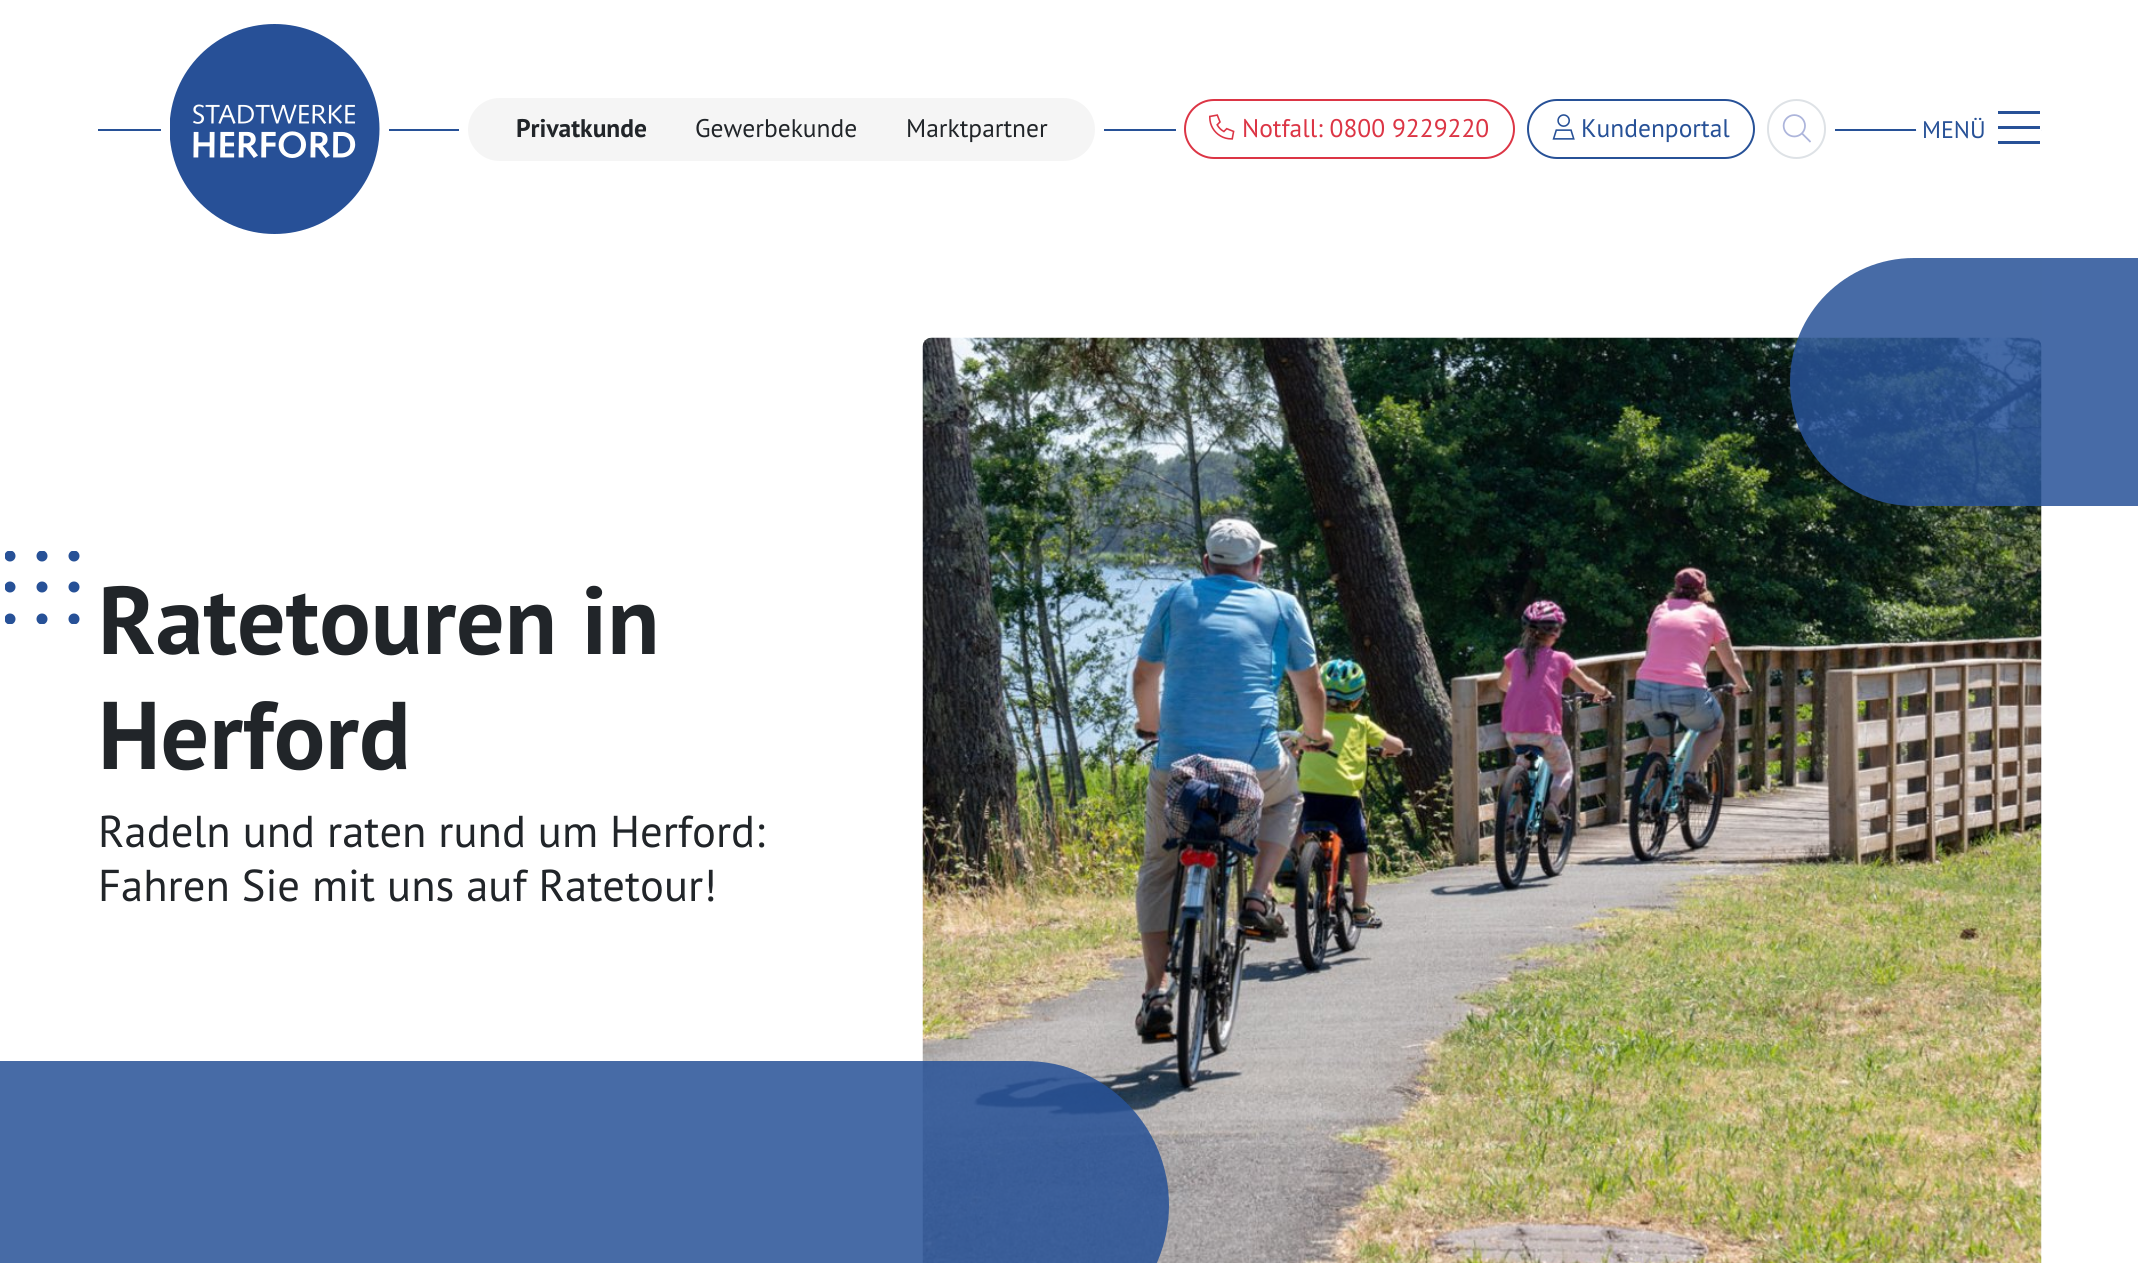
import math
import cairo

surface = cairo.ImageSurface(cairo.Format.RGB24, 2138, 1263)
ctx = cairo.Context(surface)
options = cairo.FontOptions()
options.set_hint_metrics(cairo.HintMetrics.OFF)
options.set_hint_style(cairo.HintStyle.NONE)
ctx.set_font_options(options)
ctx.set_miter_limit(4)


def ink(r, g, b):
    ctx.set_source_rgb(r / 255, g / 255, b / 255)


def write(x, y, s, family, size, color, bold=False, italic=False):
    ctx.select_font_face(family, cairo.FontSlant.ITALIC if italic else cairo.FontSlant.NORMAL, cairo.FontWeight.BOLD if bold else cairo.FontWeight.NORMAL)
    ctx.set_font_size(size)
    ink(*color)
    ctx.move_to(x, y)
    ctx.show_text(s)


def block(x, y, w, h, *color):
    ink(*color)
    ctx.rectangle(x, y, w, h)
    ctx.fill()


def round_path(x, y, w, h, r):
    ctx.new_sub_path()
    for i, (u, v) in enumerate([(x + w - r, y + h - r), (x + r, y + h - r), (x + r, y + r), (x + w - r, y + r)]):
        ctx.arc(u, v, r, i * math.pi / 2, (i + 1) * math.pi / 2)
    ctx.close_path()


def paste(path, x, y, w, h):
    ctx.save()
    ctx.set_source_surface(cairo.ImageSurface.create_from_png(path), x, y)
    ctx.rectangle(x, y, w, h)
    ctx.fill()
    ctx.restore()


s1 = dict(family="PT Sans", size=25.5, color=(33, 37, 41), bold=True)
s2 = dict(family="PT Sans", size=25.5, color=(33, 37, 41))
s3 = dict(family="PT Sans", size=25.5, color=(220, 53, 69))
s4 = dict(family="PT Sans", size=25.5, color=(39, 81, 151))
s5 = dict(family="PT Sans", size=24, color=(39, 81, 151))
s6 = dict(family="PT Sans", size=96, color=(33, 37, 41), bold=True)
s7 = dict(family="PT Sans", size=44.6, color=(33, 37, 41))

ink(255, 255, 255)
ctx.paint()
block(98, 129, 1944, 2, 39, 81, 151)
block(161, 129, 228, 2, 255, 255, 255)
paste("pic1.png", 170, 24, 210, 210)
block(459, 129, 645, 2, 255, 255, 255)
ink(245, 245, 245)
round_path(468, 98, 627, 63, 31.5)
ctx.fill()
write(516, 137, "Privatkunde", **s1)
write(695, 137, "Gewerbekunde", **s2)
write(906, 137, "Marktpartner", **s2)
block(1176, 129, 659, 2, 255, 255, 255)
round_path(1185, 100, 329, 58, 29)
ink(220, 53, 69)
ctx.stroke()
paste("pic2.png", 1209, 114, 26, 26)
write(1242, 137, "Notfall: 0800 9229220", **s3)
round_path(1528, 100, 226, 58, 29)
ink(39, 81, 151)
ctx.stroke()
paste("pic3.png", 1552, 114, 23, 26)
write(1581, 137, "Kundenportal", **s4)
paste("pic4.png", 1782, 114, 29, 29)
round_path(1768, 100, 57, 58, 28.5)
ink(222, 226, 230)
ctx.stroke()
ink(255, 255, 255)
round_path(1916, 98, 126, 63, 31.5)
ctx.fill()
write(1922, 138, "MENÜ", **s5)
paste("pic5.png", 1998, 111, 42, 33)
ctx.save()
ctx.rectangle(5, 551, 75, 73)
ctx.clip()
ctx.arc(10, 556, 5.5, 0, 2 * math.pi)
ctx.fill()
ctx.arc(42, 556, 5.5, 0, 2 * math.pi)
ctx.fill()
ctx.arc(74, 556, 5.5, 0, 2 * math.pi)
ctx.fill()
ctx.arc(10, 587, 5.5, 0, 2 * math.pi)
ctx.fill()
ctx.restore()
ctx.arc(42, 587, 5.5, 0, 2 * math.pi)
ctx.fill()
ctx.arc(74, 587, 5.5, 0, 2 * math.pi)
ctx.fill()
ctx.save()
ctx.rectangle(5, 551, 75, 73)
ctx.clip()
ctx.arc(10, 619, 5.5, 0, 2 * math.pi)
ctx.fill()
ctx.arc(42, 619, 5.5, 0, 2 * math.pi)
ctx.fill()
ctx.arc(74, 619, 5.5, 0, 2 * math.pi)
ctx.fill()
ctx.restore()
write(98, 654, "Ratetouren in", **s6)
write(98, 769, "Herford", **s6)
write(98, 847, "Radeln und raten rund um Herford:", **s7)
write(98, 901, "Fahren Sie mit uns auf Ratetour!", **s7)
paste("pic6.png", 922, 337, 1120, 926)
ctx.set_source_rgba(0.153, 0.318, 0.592, 0.85)
ctx.new_path()
ctx.move_to(1914, 258)
ctx.line_to(2042, 258)
ctx.line_to(2042, 506)
ctx.line_to(1914, 506)
ctx.curve_to(1845.5, 506, 1790, 450.5, 1790, 382)
ctx.curve_to(1790, 313.5, 1845.5, 258, 1914, 258)
ctx.close_path()
ctx.fill()
block(2042, 258, 96, 248, 71, 107, 167)
ctx.set_source_rgba(0.153, 0.318, 0.592, 0.85)
ctx.new_path()
ctx.move_to(0, 1061)
ctx.line_to(1025, 1061)
ctx.curve_to(1104.5, 1061, 1169, 1125.5, 1169, 1205)
ctx.curve_to(1169, 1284.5, 1104.5, 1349, 1025, 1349)
ctx.line_to(0, 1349)
ctx.close_path()
ctx.fill()
surface.write_to_png("screenshot.png")
